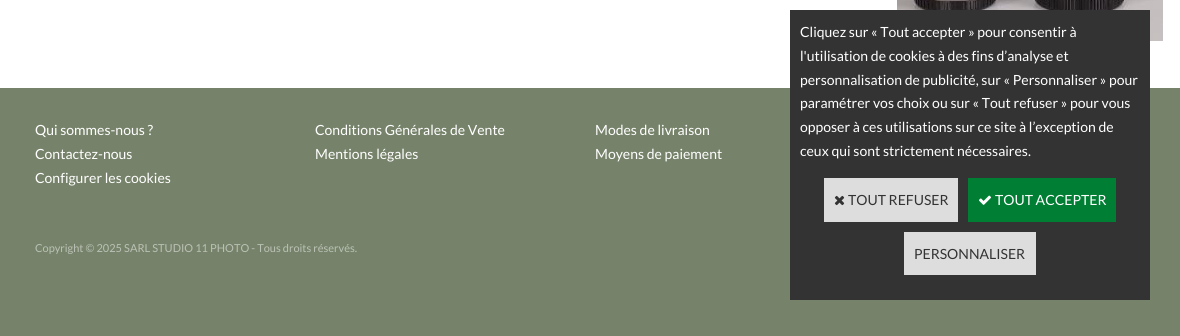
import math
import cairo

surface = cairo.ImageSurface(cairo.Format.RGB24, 1180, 336)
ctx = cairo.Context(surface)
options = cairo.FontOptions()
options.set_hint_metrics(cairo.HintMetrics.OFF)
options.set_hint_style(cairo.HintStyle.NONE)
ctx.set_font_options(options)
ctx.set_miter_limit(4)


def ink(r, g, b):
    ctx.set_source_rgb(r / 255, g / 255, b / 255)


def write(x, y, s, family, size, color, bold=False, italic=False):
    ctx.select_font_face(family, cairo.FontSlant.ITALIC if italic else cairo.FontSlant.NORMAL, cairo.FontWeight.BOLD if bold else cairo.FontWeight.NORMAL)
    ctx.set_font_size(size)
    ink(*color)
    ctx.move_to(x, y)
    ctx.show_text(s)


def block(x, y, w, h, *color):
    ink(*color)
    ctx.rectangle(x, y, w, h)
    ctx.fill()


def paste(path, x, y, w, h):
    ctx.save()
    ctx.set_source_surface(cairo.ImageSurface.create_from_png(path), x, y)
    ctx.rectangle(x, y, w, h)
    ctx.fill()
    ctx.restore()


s1 = dict(family="Lato", size=14, color=(255, 255, 255))
s2 = dict(family="Lato", size=11, color=(187, 193, 181))
s3 = dict(family="Lato", size=14, color=(51, 51, 51))

ink(255, 255, 255)
ctx.paint()
paste("pic1.png", 897, 0, 266, 41)
block(0, 88, 1180, 248, 118, 131, 106)
write(35, 135, "Qui sommes-nous ?", **s1)
write(315, 135, "Conditions Générales de Vente", **s1)
write(595, 135, "Modes de livraison", **s1)
write(35, 159, "Contactez-nous", **s1)
write(315, 159, "Mentions légales", **s1)
write(595, 159, "Moyens de paiement", **s1)
write(35, 183, "Configurer les cookies", **s1)
write(35, 252, "Copyright © 2025 SARL STUDIO 11 PHOTO - Tous droits réservés.", **s2)
block(790, 10, 360, 290, 51, 51, 51)
write(800, 37, "Cliquez sur « Tout accepter » pour consentir à", **s1)
write(800, 61, "l'utilisation de cookies à des fins d’analyse et", **s1)
write(800, 85, "personnalisation de publicité, sur « Personnaliser » pour", **s1)
write(800, 108, "paramétrer vos choix ou sur « Tout refuser » pour vous", **s1)
write(800, 132, "opposer à ces utilisations sur ce site à l’exception de", **s1)
write(800, 156, "ceux qui sont strictement nécessaires.", **s1)
block(824, 178, 134, 44, 221, 221, 221)
paste("pic2.png", 834, 195, 11, 11)
write(848, 205, "TOUT REFUSER", **s3)
block(968, 178, 148, 44, 0, 126, 51)
paste("pic3.png", 979, 195, 12, 10)
write(995, 205, "TOUT ACCEPTER", **s1)
block(904, 232, 132, 43, 221, 221, 221)
write(914, 259, "PERSONNALISER", **s3)
surface.write_to_png("screenshot.png")
